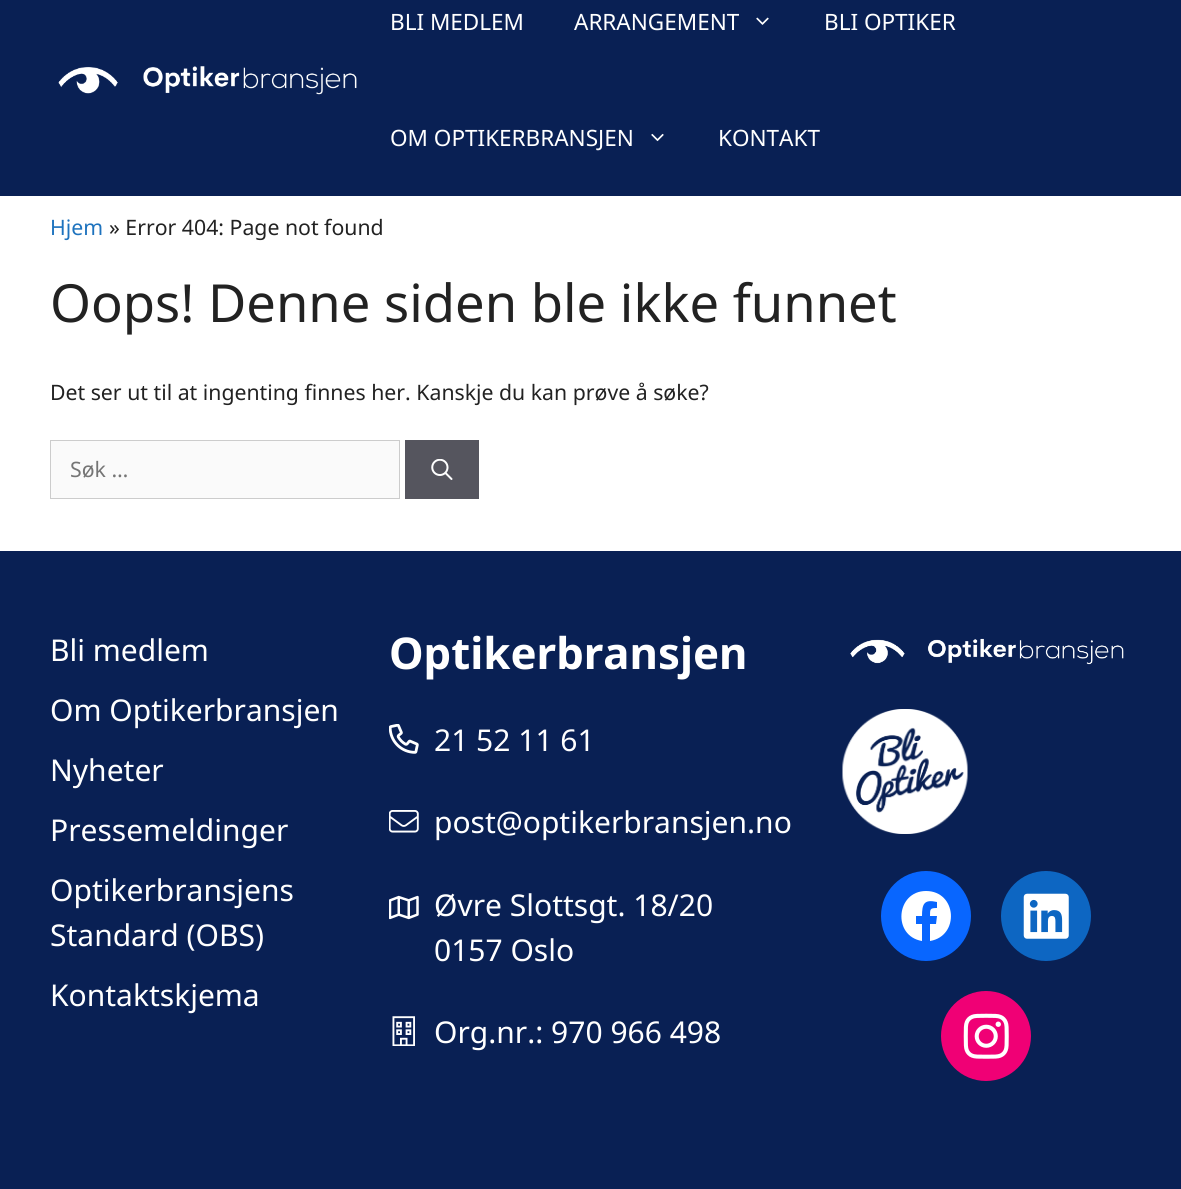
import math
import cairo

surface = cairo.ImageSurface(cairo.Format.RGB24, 1181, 1189)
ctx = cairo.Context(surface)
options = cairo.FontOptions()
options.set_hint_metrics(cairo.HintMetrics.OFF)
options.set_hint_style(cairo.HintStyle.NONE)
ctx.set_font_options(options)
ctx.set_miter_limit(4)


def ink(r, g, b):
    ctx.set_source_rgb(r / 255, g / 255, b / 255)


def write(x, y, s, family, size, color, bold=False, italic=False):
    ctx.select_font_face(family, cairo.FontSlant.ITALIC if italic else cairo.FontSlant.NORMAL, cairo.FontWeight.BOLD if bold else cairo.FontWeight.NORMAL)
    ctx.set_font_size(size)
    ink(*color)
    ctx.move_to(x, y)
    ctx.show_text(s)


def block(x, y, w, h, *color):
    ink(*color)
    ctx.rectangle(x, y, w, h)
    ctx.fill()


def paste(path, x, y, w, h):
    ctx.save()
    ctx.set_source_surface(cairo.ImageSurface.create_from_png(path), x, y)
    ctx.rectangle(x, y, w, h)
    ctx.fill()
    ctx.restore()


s1 = dict(family="Noto Sans", size=22.5, color=(255, 255, 255))
s2 = dict(family="Noto Sans", size=21.25, color=(30, 115, 190))
s3 = dict(family="Noto Sans", size=21.25, color=(34, 34, 34))
s4 = dict(family="Noto Sans", size=52.5, color=(34, 34, 34))
s5 = dict(family="Noto Sans", size=21.25, color=(117, 117, 117))
s6 = dict(family="Noto Sans", size=30, color=(255, 255, 255))
s7 = dict(family="Noto Sans", size=43.75, color=(255, 255, 255), bold=True)

ink(255, 255, 255)
ctx.paint()
block(0, 0, 1181, 196, 9, 32, 84)
paste("pic1.png", 58, 66, 299, 29)
write(390, 30, "BLI MEDLEM", **s1)
write(574, 30, "ARRANGEMENT", **s1)
paste("pic2.png", 756, 17, 13, 8)
write(824, 30, "BLI OPTIKER", **s1)
write(390, 146, "OM OPTIKERBRANSJEN", **s1)
paste("pic3.png", 651, 133, 13, 9)
write(718, 146, "KONTAKT", **s1)
write(50, 235, "Hjem", **s2)
write(109, 235, "» Error 404: Page not found", **s3)
write(50, 322, "Oops! Denne siden ble ikke funnet", **s4)
write(50, 400, "Det ser ut til at ingenting finnes her. Kanskje du kan prøve å søke?", **s3)
ink(250, 250, 250)
ctx.rectangle(50.5, 440.5, 349, 58)
ctx.fill_preserve()
ink(204, 204, 204)
ctx.set_line_width(1)
ctx.stroke()
write(70, 477, "Søk …", **s5)
block(405, 440, 74, 59, 85, 85, 94)
paste("pic4.png", 431, 459, 22, 21)
block(0, 551, 1181, 638, 9, 32, 84)
write(50, 661, "Bli medlem", **s6)
write(50, 721, "Om Optikerbransjen", **s6)
write(50, 781, "Nyheter", **s6)
write(50, 841, "Pressemeldinger", **s6)
write(50, 901, "Optikerbransjens", **s6)
write(50, 946, "Standard (OBS)", **s6)
write(50, 1006, "Kontaktskjema", **s6)
write(389, 669, "Optikerbransjen", **s7)
paste("pic5.png", 389, 724, 30, 30)
write(434, 751, "21 52 11 61", **s6)
paste("pic6.png", 389, 810, 30, 23)
write(434, 833, "post@optikerbransjen.no", **s6)
paste("pic7.png", 389, 895, 30, 25)
write(434, 916, "Øvre Slottsgt. 18/20", **s6)
write(434, 961, "0157 Oslo", **s6)
paste("pic8.png", 392, 1016, 23, 30)
write(434, 1043, "Org.nr.: 970 966 498", **s6)
paste("pic9.png", 850, 638, 274, 27)
paste("pic10.png", 842, 709, 126, 125)
ink(8, 102, 255)
ctx.arc(926, 916, 45, 0, 2 * math.pi)
ctx.fill()
ink(255, 255, 255)
ctx.new_path()
ctx.move_to(926, 891)
ctx.curve_to(896, 891, 892, 936, 922, 941)
ctx.line_to(922, 924)
ctx.line_to(916, 924)
ctx.line_to(916, 916)
ctx.line_to(922, 916)
ctx.curve_to(922, 904, 924, 899, 937, 902)
ctx.line_to(937, 908)
ctx.curve_to(930, 908, 930, 909, 930, 916)
ctx.line_to(937, 916)
ctx.line_to(936, 924)
ctx.line_to(930, 924)
ctx.line_to(930, 941)
ctx.curve_to(960, 936, 957, 891, 926, 891)
ctx.close_path()
ctx.fill()
ink(13, 102, 194)
ctx.arc(1046, 916, 45, 0, 2 * math.pi)
ctx.fill()
paste("pic11.png", 1023, 893, 46, 46)
ink(240, 0, 117)
ctx.arc(986, 1036, 45, 0, 2 * math.pi)
ctx.fill()
paste("pic12.png", 963, 1013, 46, 46)
surface.write_to_png("screenshot.png")
